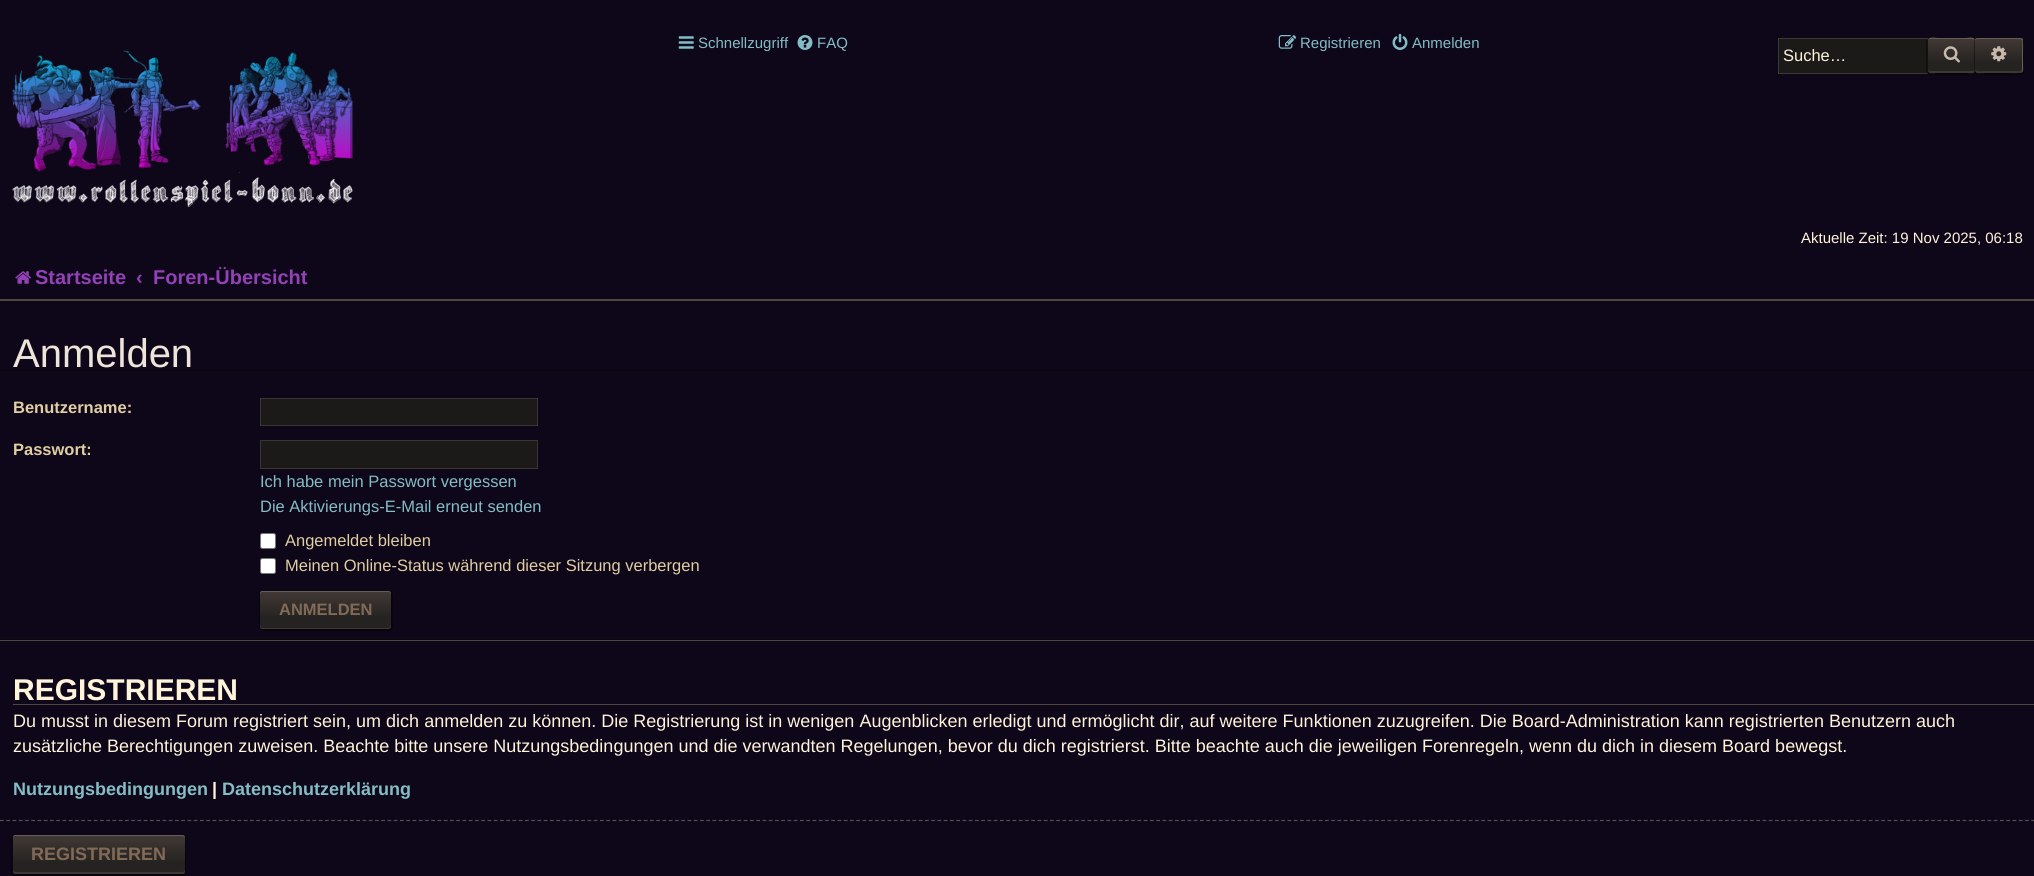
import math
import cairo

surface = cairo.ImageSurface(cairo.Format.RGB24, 2034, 876)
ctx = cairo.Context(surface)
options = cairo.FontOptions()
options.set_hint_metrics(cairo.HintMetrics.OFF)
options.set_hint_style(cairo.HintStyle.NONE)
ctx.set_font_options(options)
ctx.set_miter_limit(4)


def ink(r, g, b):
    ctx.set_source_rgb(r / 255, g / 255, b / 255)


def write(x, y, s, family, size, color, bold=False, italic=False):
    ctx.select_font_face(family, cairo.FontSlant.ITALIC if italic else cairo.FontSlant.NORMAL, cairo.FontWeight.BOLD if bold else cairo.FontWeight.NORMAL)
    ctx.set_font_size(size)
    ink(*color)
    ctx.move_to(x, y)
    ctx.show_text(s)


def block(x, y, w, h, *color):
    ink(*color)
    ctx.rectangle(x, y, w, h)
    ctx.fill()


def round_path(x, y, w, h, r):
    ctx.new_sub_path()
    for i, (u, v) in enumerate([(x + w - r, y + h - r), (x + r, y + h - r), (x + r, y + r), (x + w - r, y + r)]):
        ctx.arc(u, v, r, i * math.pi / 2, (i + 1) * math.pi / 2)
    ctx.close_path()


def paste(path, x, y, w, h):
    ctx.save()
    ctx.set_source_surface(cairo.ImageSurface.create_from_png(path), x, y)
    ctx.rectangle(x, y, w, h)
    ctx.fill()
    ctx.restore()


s1 = dict(family="Liberation Sans", size=15, color=(131, 189, 197))
s2 = dict(family="Liberation Sans", size=16.5, color=(255, 244, 218))
s3 = dict(family="Liberation Sans", size=15, color=(255, 244, 218))
s4 = dict(family="Liberation Sans", size=20, color=(146, 65, 183), bold=True)
s5 = dict(family="Liberation Sans", size=40, color=(237, 229, 217))
s6 = dict(family="Liberation Sans", size=16.5, color=(225, 207, 162), bold=True)
s7 = dict(family="Liberation Sans", size=16.5, color=(131, 189, 197))
s8 = dict(family="Liberation Sans", size=16.5, color=(225, 207, 162))
s9 = dict(family="Liberation Sans", size=16.5, color=(130, 106, 88), bold=True)
s10 = dict(family="Liberation Sans", size=30, color=(255, 244, 218), bold=True)
s11 = dict(family="Liberation Sans", size=18, color=(255, 244, 218))
s12 = dict(family="Liberation Sans", size=18, color=(131, 189, 197), bold=True)
s13 = dict(family="Liberation Sans", size=18, color=(255, 244, 218), bold=True)
s14 = dict(family="Liberation Sans", size=18, color=(130, 106, 88), bold=True)

ink(14, 6, 25)
ctx.paint()
paste("pic1.png", 678, 36, 16, 13)
write(698, 48, "Schnellzugriff", **s1)
paste("pic2.png", 797, 35, 16, 15)
write(817, 48, "FAQ", **s1)
paste("pic3.png", 1278, 35, 19, 14)
write(1300, 48, "Registrieren", **s1)
paste("pic4.png", 1392, 33, 16, 17)
write(1412, 48, "Anmelden", **s1)
paste("pic5.png", 12, 50, 341, 157)
block(1779, 39, 149, 34, 28, 26, 24)
block(1778, 38, 150, 1, 62, 56, 50)
block(1778, 73, 150, 1, 62, 56, 50)
block(1778, 38, 1, 36, 62, 56, 50)
write(1783, 61, "Suche…", **s2)
ctx.set_source_rgba(0, 0, 0, 0.4)
ctx.new_path()
ctx.move_to(1928, 39)
ctx.curve_to(1927, 39, 1926, 41, 1926, 42)
ctx.line_to(1926, 71)
ctx.curve_to(1926, 73, 1928, 75, 1930, 75)
ctx.line_to(1972, 75)
ctx.curve_to(1974, 75, 1976, 73, 1976, 71)
ctx.line_to(1976, 42)
ctx.curve_to(1976, 41, 1976, 40, 1975, 39)
ctx.line_to(1975, 60)
ctx.curve_to(1975, 73, 1978, 72, 1965, 72)
ctx.line_to(1937, 72)
ctx.curve_to(1927, 72, 1928, 74, 1928, 65)
ctx.line_to(1928, 55)
ctx.curve_to(1928, 52, 1927, 40, 1928, 39)
ctx.close_path()
ctx.fill()
gradient = cairo.LinearGradient(1951, 38, 1951, 73)
gradient.add_color_stop_rgba(0, 0.259, 0.224, 0.208, 1)
gradient.add_color_stop_rgba(0.7, 0.145, 0.137, 0.129, 1)
ctx.set_source(gradient)
round_path(1928, 38, 47, 35, 2.5)
ctx.fill()
ink(62, 56, 50)
ctx.new_path()
ctx.move_to(1928, 69)
ctx.curve_to(1928, 75, 1932, 73, 1938, 73)
ctx.line_to(1966, 73)
ctx.curve_to(1971, 73, 1975, 75, 1975, 69)
ctx.curve_to(1975, 70, 1974, 71, 1972, 71)
ctx.line_to(1930, 71)
ctx.curve_to(1929, 71, 1928, 70, 1928, 69)
ctx.close_path()
ctx.fill()
ink(102, 93, 85)
ctx.new_path()
ctx.move_to(1930, 39)
ctx.line_to(1972, 39)
ctx.curve_to(1974, 39, 1975, 40, 1975, 41)
ctx.curve_to(1975, 36, 1968, 38, 1966, 38)
ctx.line_to(1938, 38)
ctx.curve_to(1935, 38, 1928, 36, 1928, 41)
ctx.curve_to(1928, 40, 1929, 39, 1930, 39)
ctx.close_path()
ctx.fill()
paste("pic6.png", 1943, 46, 17, 17)
ctx.set_source_rgba(0, 0, 0, 0.4)
ctx.new_path()
ctx.move_to(1975, 39)
ctx.curve_to(1974, 40, 1974, 41, 1974, 42)
ctx.line_to(1974, 71)
ctx.curve_to(1974, 73, 1976, 75, 1978, 75)
ctx.line_to(2020, 75)
ctx.curve_to(2022, 75, 2024, 73, 2024, 71)
ctx.line_to(2024, 42)
ctx.curve_to(2024, 41, 2023, 39, 2022, 39)
ctx.curve_to(2023, 40, 2022, 52, 2022, 55)
ctx.line_to(2022, 65)
ctx.curve_to(2022, 74, 2023, 72, 2013, 72)
ctx.line_to(1985, 72)
ctx.curve_to(1972, 72, 1975, 73, 1975, 60)
ctx.close_path()
ctx.fill()
gradient = cairo.LinearGradient(1999, 38, 1999, 73)
gradient.add_color_stop_rgba(0, 0.259, 0.224, 0.208, 1)
gradient.add_color_stop_rgba(0.7, 0.145, 0.137, 0.129, 1)
ctx.set_source(gradient)
round_path(1975, 38, 48, 35, 2.5)
ctx.fill()
ink(62, 56, 50)
ctx.new_path()
ctx.move_to(1975, 69)
ctx.curve_to(1975, 75, 1980, 73, 1985, 73)
ctx.line_to(2006, 73)
ctx.curve_to(2027, 73, 2023, 76, 2023, 56)
ctx.curve_to(2023, 53, 2024, 40, 2022, 38)
ctx.line_to(2022, 64)
ctx.curve_to(2022, 73, 2022, 71, 2013, 71)
ctx.line_to(1985, 71)
ctx.curve_to(1985, 71, 1977, 72, 1975, 70)
ctx.close_path()
ctx.fill()
ink(102, 93, 85)
ctx.new_path()
ctx.move_to(1978, 39)
ctx.line_to(2013, 39)
ctx.curve_to(2025, 39, 2022, 38, 2022, 51)
ctx.line_to(2022, 73)
ctx.curve_to(2022, 72, 2023, 71, 2023, 70)
ctx.line_to(2023, 40)
ctx.curve_to(2023, 39, 2022, 38, 2020, 38)
ctx.line_to(1978, 38)
ctx.curve_to(1976, 38, 1975, 39, 1975, 40)
ctx.line_to(1975, 41)
ctx.curve_to(1975, 40, 1976, 39, 1978, 39)
ctx.close_path()
ctx.fill()
paste("pic7.png", 1991, 46, 16, 16)
write(1801, 243, "Aktuelle Zeit: 19 Nov 2025, 06:18", **s3)
paste("pic8.png", 15, 271, 16, 13)
write(35, 284, "Startseite", **s4)
write(136, 284, "‹", **s4)
write(153, 284, "Foren-Übersicht", **s4)
block(0, 299, 2034, 2, 79, 71, 63)
block(0, 639, 2034, 1, 9, 8, 7)
block(0, 370, 2034, 1, 9, 8, 7)
write(13, 367, "Anmelden", **s5)
write(13, 413, "Benutzername:", **s6)
ink(28, 26, 24)
ctx.rectangle(260.5, 398.5, 277, 27)
ctx.fill_preserve()
ink(57, 53, 51)
ctx.set_line_width(1)
ctx.stroke()
write(13, 455, "Passwort:", **s6)
ink(28, 26, 24)
ctx.rectangle(260.5, 440.5, 277, 28)
ctx.fill_preserve()
ink(57, 53, 51)
ctx.stroke()
write(260, 487, "Ich habe mein Passwort vergessen", **s7)
write(260, 512, "Die Aktivierungs-E-Mail erneut senden", **s7)
ink(255, 255, 255)
round_path(260.5, 533.5, 15, 15, 2)
ctx.fill_preserve()
ink(118, 118, 118)
ctx.stroke()
write(285, 546, "Angemeldet bleiben", **s8)
ink(255, 255, 255)
round_path(260.5, 558.5, 15, 15, 2)
ctx.fill_preserve()
ink(118, 118, 118)
ctx.stroke()
write(285, 571, "Meinen Online-Status während dieser Sitzung verbergen", **s8)
ink(8, 4, 15)
ctx.set_fill_rule(cairo.FillRule.EVEN_ODD)
ctx.new_path()
ctx.move_to(263, 591)
ctx.curve_to(261, 591, 259, 593, 259, 595)
ctx.line_to(259, 627)
ctx.curve_to(259, 629, 261, 631, 263, 631)
ctx.line_to(389, 631)
ctx.curve_to(391, 631, 393, 629, 393, 627)
ctx.line_to(393, 595)
ctx.curve_to(393, 593, 391, 591, 389, 591)
ctx.close_path()
ctx.move_to(262, 591)
ctx.curve_to(261, 591, 260, 592, 260, 594)
ctx.line_to(260, 626)
ctx.curve_to(260, 628, 261, 629, 262, 629)
ctx.line_to(389, 629)
ctx.curve_to(390, 629, 391, 628, 391, 626)
ctx.line_to(391, 594)
ctx.curve_to(391, 592, 390, 591, 389, 591)
ctx.close_path()
ctx.fill()
gradient = cairo.LinearGradient(326, 591, 326, 629)
gradient.add_color_stop_rgba(0, 0.259, 0.224, 0.208, 1)
gradient.add_color_stop_rgba(0.7, 0.145, 0.137, 0.129, 1)
ctx.set_source(gradient)
round_path(260, 591, 131, 38, 2.5)
ctx.fill()
ink(62, 56, 50)
ctx.set_fill_rule(cairo.FillRule.WINDING)
ctx.new_path()
ctx.move_to(260, 625)
ctx.line_to(260, 626)
ctx.curve_to(260, 628, 261, 629, 262, 629)
ctx.line_to(388, 629)
ctx.curve_to(390, 629, 391, 628, 391, 626)
ctx.line_to(391, 625)
ctx.line_to(390, 627)
ctx.line_to(389, 628)
ctx.line_to(262, 628)
ctx.curve_to(261, 628, 260, 626, 260, 625)
ctx.close_path()
ctx.fill()
ink(102, 93, 85)
ctx.new_path()
ctx.move_to(262, 592)
ctx.line_to(389, 592)
ctx.curve_to(390, 592, 391, 594, 391, 595)
ctx.line_to(391, 594)
ctx.curve_to(391, 592, 390, 591, 388, 591)
ctx.line_to(262, 591)
ctx.curve_to(261, 591, 260, 592, 260, 594)
ctx.line_to(260, 595)
ctx.curve_to(260, 594, 261, 592, 262, 592)
ctx.close_path()
ctx.fill()
write(279, 615, "ANMELDEN", **s9)
block(0, 640, 2034, 1, 79, 71, 63)
block(13, 704, 2021, 1, 79, 71, 63)
write(13, 700, "REGISTRIEREN", **s10)
write(13, 727, "Du musst in diesem Forum registriert sein, um dich anmelden zu können. Die Registrierung ist in wenigen Augenblicken erledigt und ermöglicht dir, auf weitere Funktionen zuzugreifen. Die Board-Administration kann registrierten Benutzern auch", **s11)
write(13, 752, "zusätzliche Berechtigungen zuweisen. Beachte bitte unsere Nutzungsbedingungen und die verwandten Regelungen, bevor du dich registrierst. Bitte beachte auch die jeweiligen Forenregeln, wenn du dich in diesem Board bewegst.", **s11)
write(13, 795, "Nutzungsbedingungen", **s12)
write(212, 795, "|", **s13)
write(222, 795, "Datenschutzerklärung", **s12)
ctx.new_path()
ctx.move_to(0, 820.5)
ctx.line_to(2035, 820.5)
ink(84, 80, 78)
ctx.set_line_width(1.2)
ctx.set_dash([3.75, 2.5])
ctx.stroke()
ink(8, 4, 15)
ctx.new_path()
ctx.move_to(15, 835)
ctx.curve_to(13, 835, 11, 837, 11, 839)
ctx.line_to(11, 872)
ctx.curve_to(11, 874, 13, 876, 15, 876)
ctx.line_to(182, 876)
ctx.curve_to(184, 876, 186, 874, 186, 872)
ctx.line_to(186, 839)
ctx.curve_to(186, 838, 185, 836, 184, 836)
ctx.line_to(185, 838)
ctx.line_to(185, 871)
ctx.curve_to(185, 873, 184, 874, 182, 874)
ctx.line_to(15, 874)
ctx.curve_to(14, 874, 12, 873, 12, 871)
ctx.line_to(12, 838)
ctx.curve_to(12, 836, 14, 835, 15, 835)
ctx.close_path()
ctx.fill()
gradient = cairo.LinearGradient(99, 835, 99, 874)
gradient.add_color_stop_rgba(0, 0.259, 0.224, 0.208, 1)
gradient.add_color_stop_rgba(0.7, 0.145, 0.137, 0.129, 1)
ctx.set_source(gradient)
round_path(13, 835, 172, 39, 2.5)
ctx.fill()
ink(62, 56, 50)
ctx.new_path()
ctx.move_to(13, 871)
ctx.line_to(13, 872)
ctx.curve_to(13, 873, 14, 874, 16, 874)
ctx.line_to(182, 874)
ctx.curve_to(184, 874, 185, 873, 185, 872)
ctx.line_to(185, 870)
ctx.curve_to(185, 871, 184, 872, 182, 872)
ctx.line_to(15, 872)
ctx.close_path()
ctx.fill()
ink(102, 93, 85)
ctx.new_path()
ctx.move_to(15, 836)
ctx.line_to(182, 836)
ctx.curve_to(184, 836, 185, 837, 185, 839)
ctx.line_to(185, 838)
ctx.curve_to(185, 836, 184, 835, 182, 835)
ctx.line_to(16, 835)
ctx.curve_to(14, 835, 13, 836, 13, 837)
ctx.close_path()
ctx.fill()
write(31, 860, "REGISTRIEREN", **s14)
surface.write_to_png("screenshot.png")
